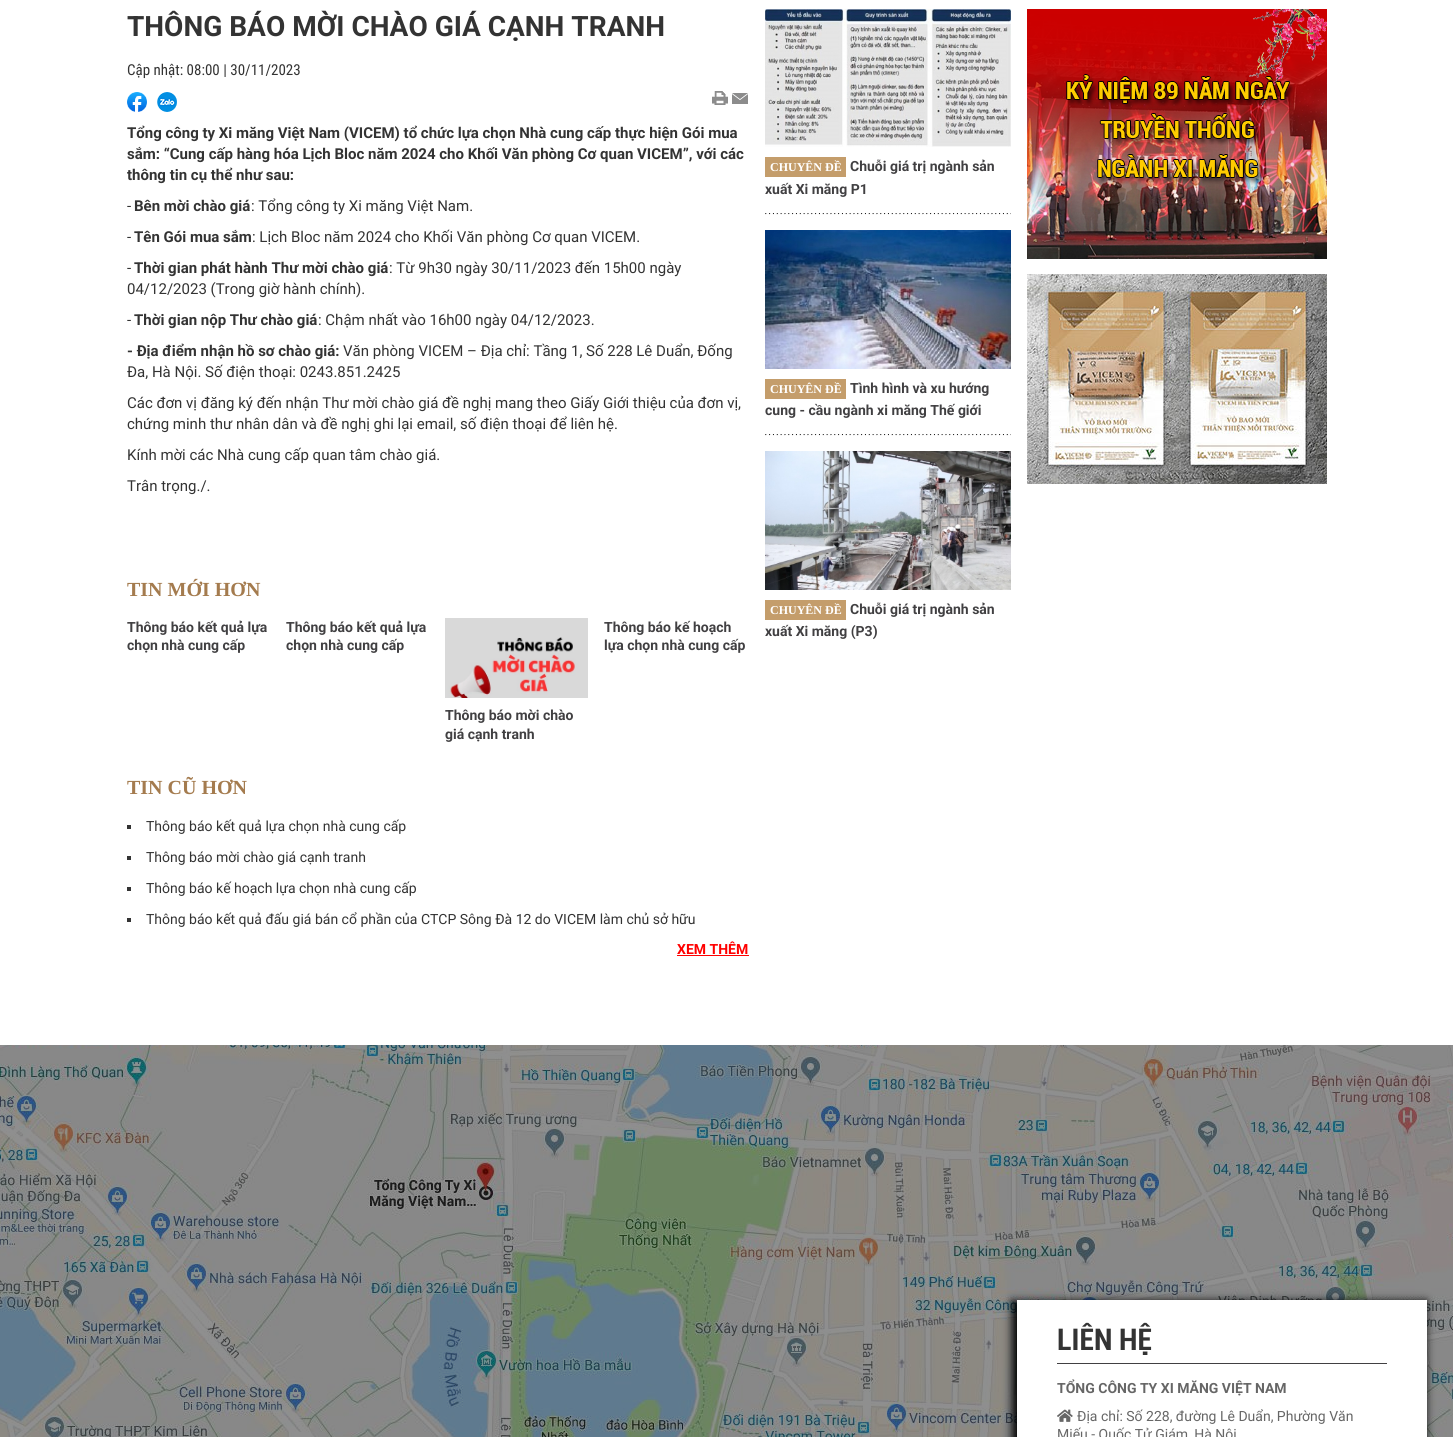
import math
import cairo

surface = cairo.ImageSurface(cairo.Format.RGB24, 1453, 1437)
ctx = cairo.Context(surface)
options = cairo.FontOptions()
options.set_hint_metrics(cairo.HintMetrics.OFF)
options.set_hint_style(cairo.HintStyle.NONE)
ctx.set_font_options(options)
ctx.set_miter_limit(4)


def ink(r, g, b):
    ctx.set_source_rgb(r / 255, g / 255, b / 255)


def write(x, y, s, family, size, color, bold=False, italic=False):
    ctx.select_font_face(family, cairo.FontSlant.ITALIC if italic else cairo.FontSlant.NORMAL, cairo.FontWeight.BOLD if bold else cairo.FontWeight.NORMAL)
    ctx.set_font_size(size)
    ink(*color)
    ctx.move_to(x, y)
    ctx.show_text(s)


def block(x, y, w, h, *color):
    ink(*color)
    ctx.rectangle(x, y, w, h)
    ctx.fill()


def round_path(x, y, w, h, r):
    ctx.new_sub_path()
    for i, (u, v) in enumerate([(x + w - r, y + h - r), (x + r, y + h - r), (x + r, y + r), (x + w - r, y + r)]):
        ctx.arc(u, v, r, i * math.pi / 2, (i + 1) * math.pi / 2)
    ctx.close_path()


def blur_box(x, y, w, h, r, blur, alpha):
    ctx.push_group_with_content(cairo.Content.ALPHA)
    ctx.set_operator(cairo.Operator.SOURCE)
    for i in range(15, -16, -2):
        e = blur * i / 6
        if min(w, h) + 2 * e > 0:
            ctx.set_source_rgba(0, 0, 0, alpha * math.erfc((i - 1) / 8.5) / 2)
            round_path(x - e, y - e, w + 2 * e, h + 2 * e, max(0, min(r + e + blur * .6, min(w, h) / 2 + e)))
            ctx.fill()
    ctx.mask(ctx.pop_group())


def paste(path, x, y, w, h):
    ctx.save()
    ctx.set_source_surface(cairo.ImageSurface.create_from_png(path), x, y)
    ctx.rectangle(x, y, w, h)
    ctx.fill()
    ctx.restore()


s1 = dict(family="Roboto", size=28, color=(51, 51, 51), bold=True)
s2 = dict(family="Roboto Condensed", size=15, color=(51, 51, 51))
s3 = dict(family="Roboto", size=15, color=(51, 51, 51), bold=True)
s4 = dict(family="Roboto", size=15, color=(51, 51, 51))
s5 = dict(family="Liberation Serif", size=20, color=(164, 123, 78), bold=True)
s6 = dict(family="Roboto", size=14, color=(65, 64, 66), bold=True)
s7 = dict(family="Roboto", size=14, color=(51, 51, 51))
s8 = dict(family="Roboto", size=14, color=(255, 0, 0), bold=True)
s9 = dict(family="Liberation Serif", size=12, color=(255, 255, 255), bold=True)
s10 = dict(family="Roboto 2", size=30, color=(51, 51, 51), bold=True)
s11 = dict(family="Roboto", size=14, color=(102, 102, 102), bold=True)
s12 = dict(family="Roboto", size=14, color=(102, 102, 102))

ink(255, 255, 255)
ctx.paint()
write(127, 36, "THÔNG BÁO MỜI CHÀO GIÁ CẠNH TRANH", **s1)
write(127, 75, "Cập nhật: 08:00 | 30/11/2023", **s2)
paste("pic1.png", 127, 92, 20, 20)
paste("pic2.png", 157, 92, 20, 20)
paste("pic3.png", 712, 91, 16, 14)
paste("pic4.png", 732, 93, 16, 11)
write(127, 138, "Tổng công ty Xi măng Việt Nam (VICEM) tổ chức lựa chọn Nhà cung cấp thực hiện Gói mua", **s3)
write(127, 159, "sắm: “Cung cấp hàng hóa Lịch Bloc năm 2024 cho Khối Văn phòng Cơ quan VICEM”, với các", **s3)
write(127, 180, "thông tin cụ thể như sau:", **s3)
write(127, 211, "-", **s4)
write(134, 211, "Bên mời chào giá", **s3)
write(251, 211, ": Tổng công ty Xi măng Việt Nam.", **s4)
write(127, 242, "-", **s4)
write(134, 242, "Tên Gói mua sắm", **s3)
write(252, 242, ": Lịch Bloc năm 2024 cho Khối Văn phòng Cơ quan VICEM.", **s4)
write(127, 273, "-", **s4)
write(134, 273, "Thời gian phát hành Thư mời chào giá", **s3)
write(389, 273, ": Từ 9h30 ngày 30/11/2023 đến 15h00 ngày", **s4)
write(127, 294, "04/12/2023 (Trong giờ hành chính).", **s4)
write(127, 325, "-", **s4)
write(134, 325, "Thời gian nộp Thư chào giá", **s3)
write(318, 325, ": Chậm nhất vào 16h00 ngày 04/12/2023.", **s4)
write(127, 356, "- Địa điểm nhận hồ sơ chào giá:", **s3)
write(343, 356, "Văn phòng VICEM – Địa chỉ: Tầng 1, Số 228 Lê Duẩn, Đống", **s4)
write(127, 377, "Đa, Hà Nội. Số điện thoại: 0243.851.2425", **s4)
write(127, 408, "Các đơn vị đăng ký đến nhận Thư mời chào giá đề nghị mang theo Giấy Giới thiệu của đơn vị,", **s4)
write(127, 429, "chứng minh thư nhân dân và đề nghị ghi lại email, số điện thoại để liên hệ.", **s4)
write(127, 460, "Kính mời các Nhà cung cấp quan tâm chào giá.", **s4)
write(127, 491, "Trân trọng./.", **s4)
write(127, 596, "TIN MỚI HƠN", **s5)
write(127, 632, "Thông báo kết quả lựa", **s6)
write(127, 650, "chọn nhà cung cấp", **s6)
write(286, 632, "Thông báo kết quả lựa", **s6)
write(286, 650, "chọn nhà cung cấp", **s6)
write(604, 632, "Thông báo kế hoạch", **s6)
write(604, 650, "lựa chọn nhà cung cấp", **s6)
paste("pic5.png", 445, 618, 143, 80)
write(445, 720, "Thông báo mời chào", **s6)
write(445, 739, "giá cạnh tranh", **s6)
write(127, 794, "TIN CŨ HƠN", **s5)
block(127, 825, 4, 4, 51, 51, 51)
write(146, 831, "Thông báo kết quả lựa chọn nhà cung cấp", **s7)
block(127, 856, 4, 4, 51, 51, 51)
write(146, 862, "Thông báo mời chào giá cạnh tranh", **s7)
block(127, 887, 4, 4, 51, 51, 51)
write(146, 893, "Thông báo kế hoạch lựa chọn nhà cung cấp", **s7)
block(127, 918, 4, 4, 51, 51, 51)
write(146, 924, "Thông báo kết quả đấu giá bán cổ phần của CTCP Sông Đà 12 do VICEM làm chủ sở hữu", **s7)
write(677, 954, "XEM THÊM", **s8)
block(677, 955, 72, 1, 255, 0, 0)
paste("pic6.png", 765, 213, 246, 2)
paste("pic7.png", 765, 9, 246, 138)
block(765, 157, 81, 20, 196, 157, 107)
write(770, 171, "CHUYÊN ĐỀ", **s9)
write(850, 171, "Chuỗi giá trị ngành sản", **s6)
write(765, 194, "xuất Xi măng P1", **s6)
paste("pic6.png", 765, 434, 246, 2)
paste("pic8.png", 765, 230, 246, 139)
block(765, 379, 81, 20, 196, 157, 107)
write(770, 393, "CHUYÊN ĐỀ", **s9)
write(850, 393, "Tình hình và xu hướng", **s6)
write(765, 415, "cung - cầu ngành xi măng Thế giới", **s6)
paste("pic9.png", 765, 451, 246, 139)
block(765, 600, 81, 20, 196, 157, 107)
write(770, 614, "CHUYÊN ĐỀ", **s9)
write(850, 614, "Chuỗi giá trị ngành sản", **s6)
write(765, 636, "xuất Xi măng (P3)", **s6)
paste("pic10.png", 1027, 9, 300, 250)
paste("pic11.png", 1027, 274, 300, 210)
paste("pic12.png", 0, 1045, 1453, 392)
ink(0, 0, 0)
blur_box(1012, 1301, 414, 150, 0, 4.5, 1)
block(1017, 1300, 410, 137, 255, 255, 255)
block(1057, 1363, 330, 1, 65, 64, 66)
write(1057, 1350, "LIÊN HỆ", **s10)
write(1057, 1393, "TỔNG CÔNG TY XI MĂNG VIỆT NAM", **s11)
paste("pic13.png", 1057, 1409, 16, 13)
write(1077, 1421, "Địa chỉ: Số 228, đường Lê Duẩn, Phường Văn", **s12)
write(1057, 1439, "Miếu - Quốc Tử Giám, Hà Nội", **s12)
surface.write_to_png("screenshot.png")
